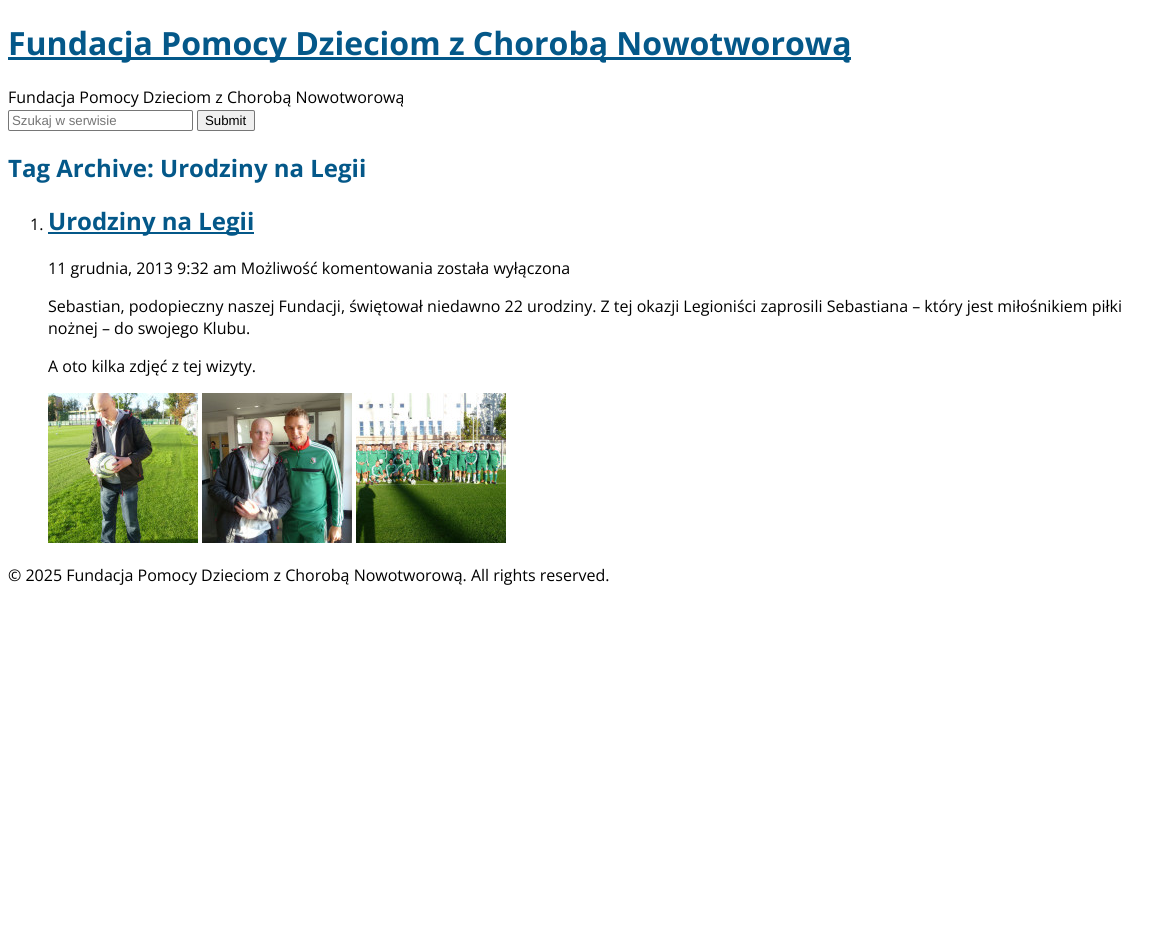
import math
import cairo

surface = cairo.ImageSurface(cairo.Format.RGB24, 1150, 947)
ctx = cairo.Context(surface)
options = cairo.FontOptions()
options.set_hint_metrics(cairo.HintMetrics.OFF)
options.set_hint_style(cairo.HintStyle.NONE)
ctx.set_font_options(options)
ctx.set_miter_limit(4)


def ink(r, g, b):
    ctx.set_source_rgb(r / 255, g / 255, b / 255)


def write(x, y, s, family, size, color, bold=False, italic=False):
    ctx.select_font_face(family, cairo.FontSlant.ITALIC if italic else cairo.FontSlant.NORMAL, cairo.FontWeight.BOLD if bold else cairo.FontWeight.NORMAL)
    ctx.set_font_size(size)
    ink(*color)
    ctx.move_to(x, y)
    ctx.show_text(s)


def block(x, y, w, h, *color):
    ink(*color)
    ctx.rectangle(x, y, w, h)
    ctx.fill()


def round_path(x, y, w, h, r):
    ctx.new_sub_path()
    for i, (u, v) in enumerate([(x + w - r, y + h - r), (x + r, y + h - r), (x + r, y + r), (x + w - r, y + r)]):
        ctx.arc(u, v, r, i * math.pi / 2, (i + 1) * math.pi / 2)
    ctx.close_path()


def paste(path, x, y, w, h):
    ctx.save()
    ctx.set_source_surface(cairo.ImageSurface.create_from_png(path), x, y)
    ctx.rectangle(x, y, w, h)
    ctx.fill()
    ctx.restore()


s1 = dict(family="Open Sans", size=32, color=(4, 88, 137), bold=True)
s2 = dict(family="Open Sans", size=16, color=(0, 0, 0))
s3 = dict(family="Liberation Sans", size=13.25, color=(117, 117, 117))
s4 = dict(family="Liberation Sans", size=13.25, color=(0, 0, 0))
s5 = dict(family="Open Sans", size=24, color=(4, 88, 137), bold=True)

ink(255, 255, 255)
ctx.paint()
block(8, 57, 843, 3, 4, 88, 137)
write(8, 55, "Fundacja Pomocy Dzieciom z Chorobą Nowotworową", **s1)
write(8, 103, "Fundacja Pomocy Dzieciom z Chorobą Nowotworową", **s2)
round_path(8.5, 110.5, 184, 20, 1.5)
ink(118, 118, 118)
ctx.set_line_width(1)
ctx.stroke()
write(12, 125, "Szukaj w serwisie", **s3)
ink(239, 239, 239)
round_path(197.5, 110.5, 57, 20, 1.5)
ctx.fill_preserve()
ink(118, 118, 118)
ctx.stroke()
write(205, 125, "Submit", **s4)
write(8, 177, "Tag Archive: Urodziny na Legii", **s5)
write(30, 230, "1.", **s2)
block(48, 232, 206, 2, 4, 88, 137)
write(48, 230, "Urodziny na Legii", **s5)
write(48, 274, "11 grudnia, 2013 9:32 am Możliwość komentowania została wyłączona", **s2)
write(48, 312, "Sebastian, podopieczny naszej Fundacji, świętował niedawno 22 urodziny. Z tej okazji Legioniści zaprosili Sebastiana – który jest miłośnikiem piłki", **s2)
write(48, 334, "nożnej – do swojego Klubu.", **s2)
write(48, 372, "A oto kilka zdjęć z tej wizyty.", **s2)
paste("pic1.png", 48, 393, 150, 150)
paste("pic2.png", 202, 393, 150, 150)
paste("pic3.png", 356, 393, 150, 150)
write(8, 581, "© 2025 Fundacja Pomocy Dzieciom z Chorobą Nowotworową. All rights reserved.", **s2)
surface.write_to_png("screenshot.png")
